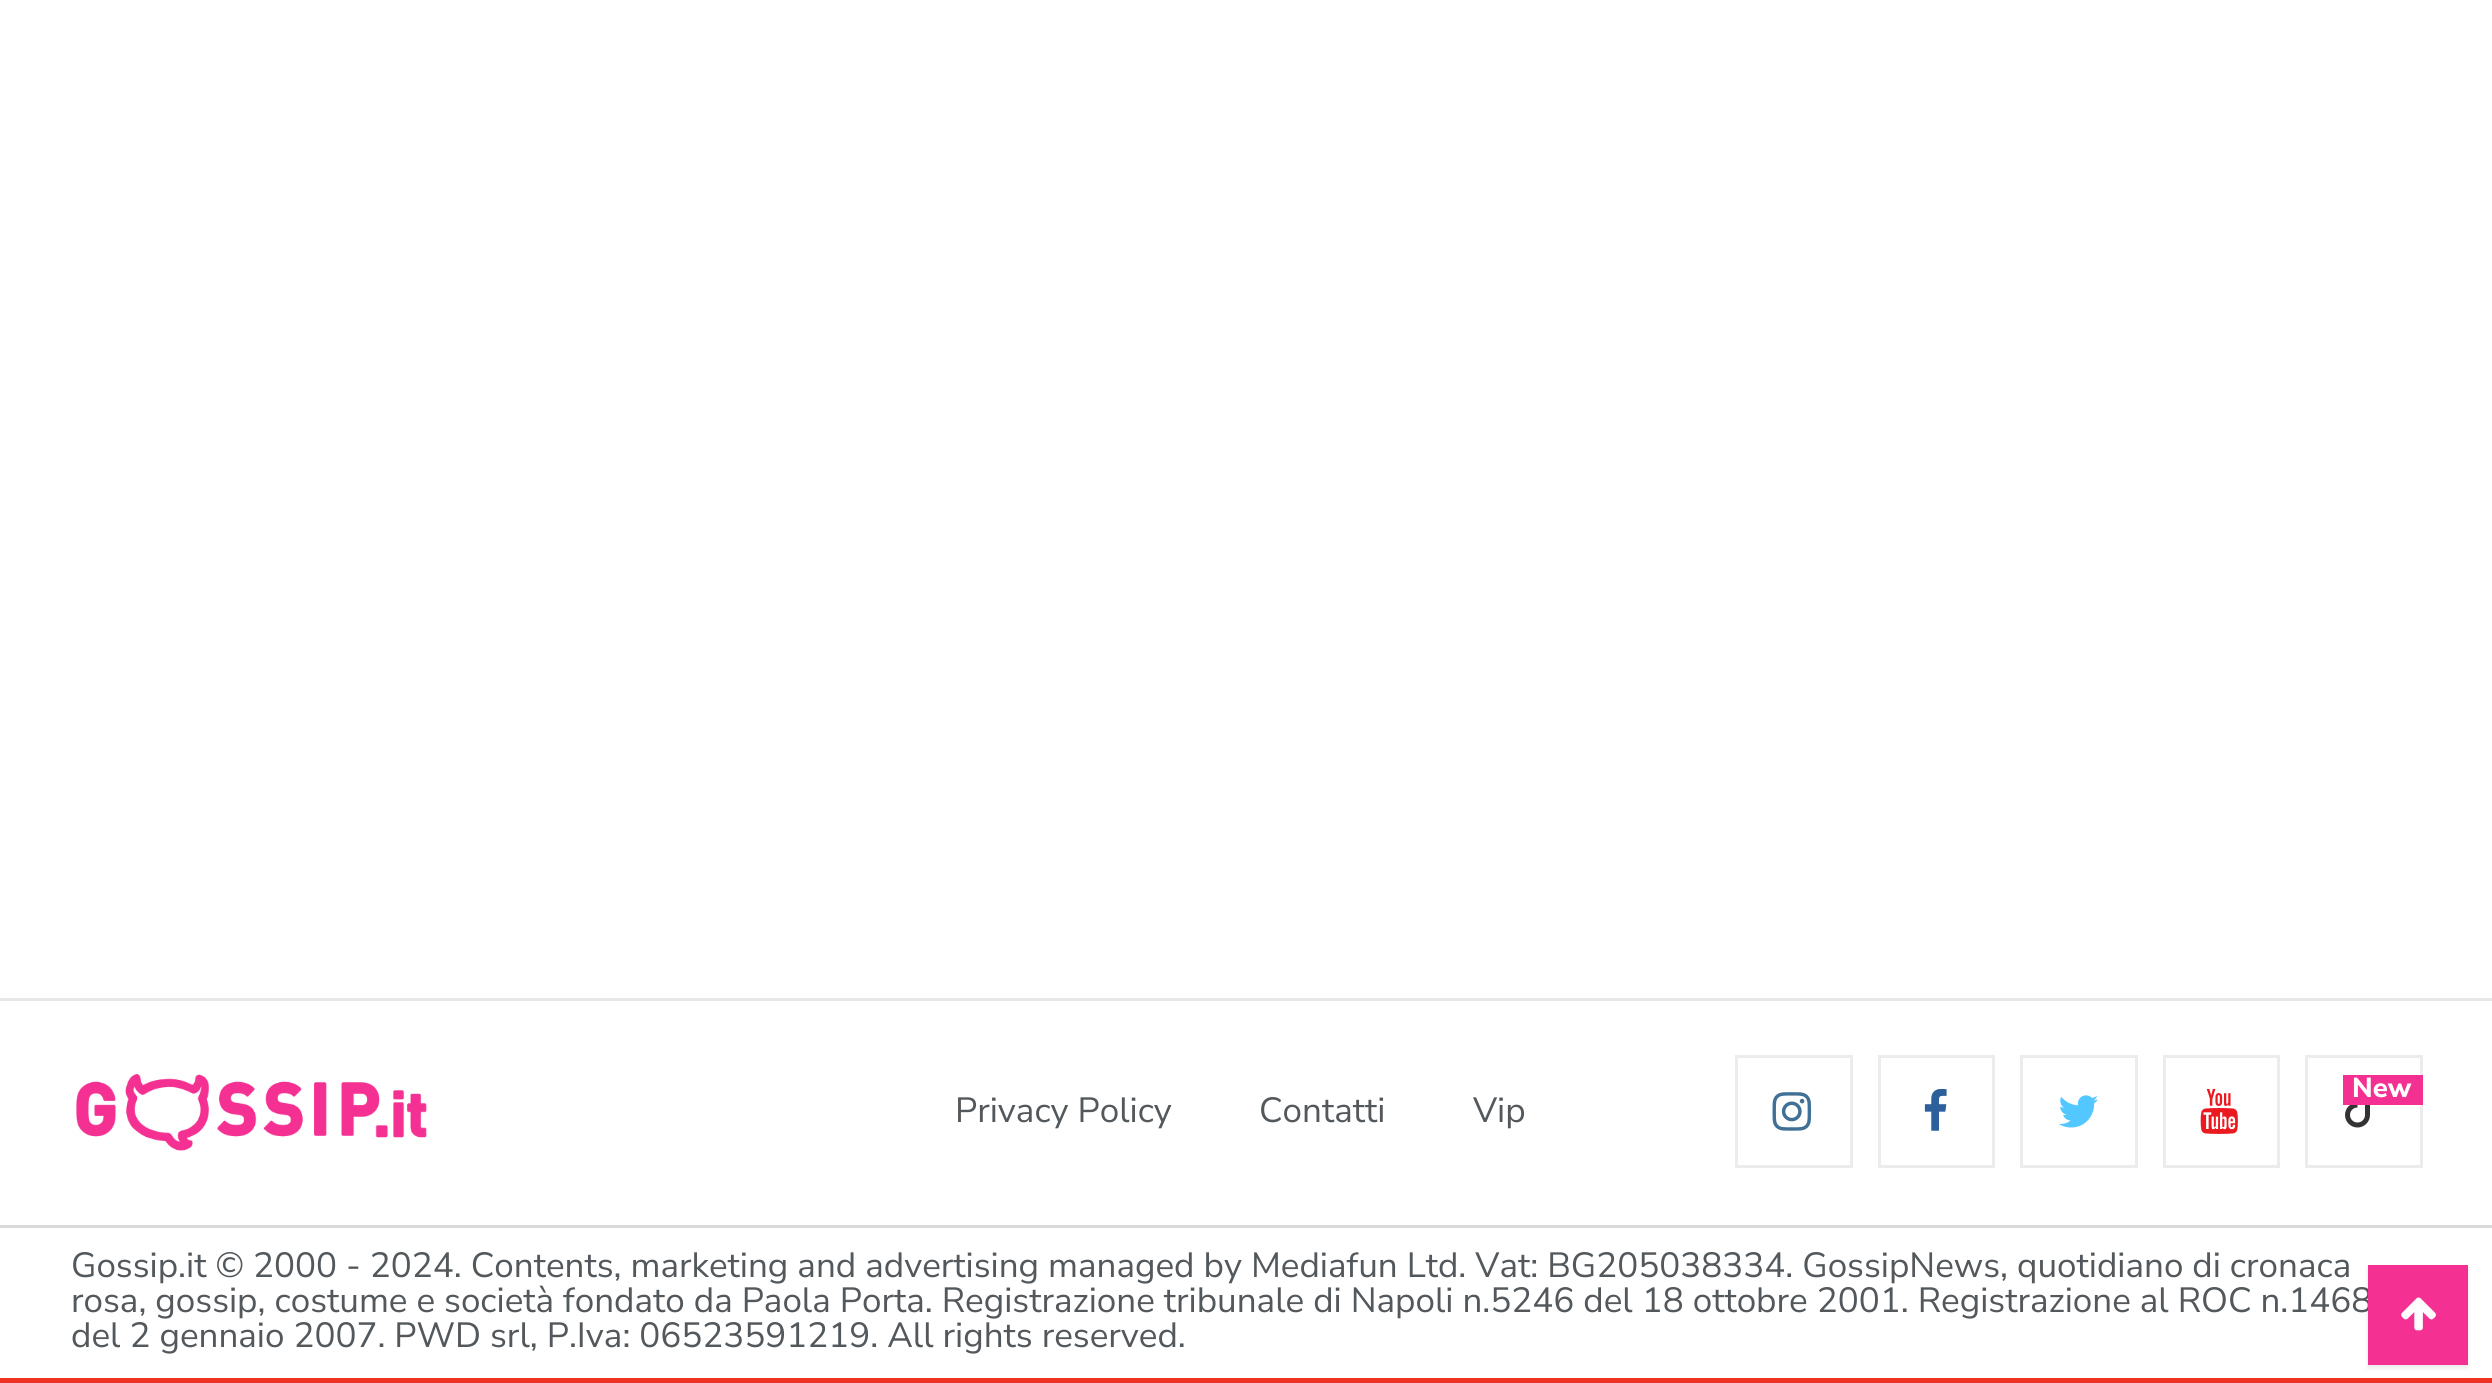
import math
import cairo

surface = cairo.ImageSurface(cairo.Format.RGB24, 2492, 1383)
ctx = cairo.Context(surface)
options = cairo.FontOptions()
options.set_hint_metrics(cairo.HintMetrics.OFF)
options.set_hint_style(cairo.HintStyle.NONE)
ctx.set_font_options(options)
ctx.set_miter_limit(4)


def ink(r, g, b):
    ctx.set_source_rgb(r / 255, g / 255, b / 255)


def write(x, y, s, family, size, color, bold=False, italic=False):
    ctx.select_font_face(family, cairo.FontSlant.ITALIC if italic else cairo.FontSlant.NORMAL, cairo.FontWeight.BOLD if bold else cairo.FontWeight.NORMAL)
    ctx.set_font_size(size)
    ink(*color)
    ctx.move_to(x, y)
    ctx.show_text(s)


def block(x, y, w, h, *color):
    ink(*color)
    ctx.rectangle(x, y, w, h)
    ctx.fill()


def round_path(x, y, w, h, r):
    ctx.new_sub_path()
    for i, (u, v) in enumerate([(x + w - r, y + h - r), (x + r, y + h - r), (x + r, y + r), (x + w - r, y + r)]):
        ctx.arc(u, v, r, i * math.pi / 2, (i + 1) * math.pi / 2)
    ctx.close_path()


def blur_box(x, y, w, h, r, blur, alpha):
    ctx.push_group_with_content(cairo.Content.ALPHA)
    ctx.set_operator(cairo.Operator.SOURCE)
    for i in range(15, -16, -2):
        e = blur * i / 6
        if min(w, h) + 2 * e > 0:
            ctx.set_source_rgba(0, 0, 0, alpha * math.erfc((i - 1) / 8.5) / 2)
            round_path(x - e, y - e, w + 2 * e, h + 2 * e, max(0, min(r + e + blur * .6, min(w, h) / 2 + e)))
            ctx.fill()
    ctx.mask(ctx.pop_group())


def paste(path, x, y, w, h):
    ctx.save()
    ctx.set_source_surface(cairo.ImageSurface.create_from_png(path), x, y)
    ctx.rectangle(x, y, w, h)
    ctx.fill()
    ctx.restore()


s1 = dict(family="Nunito Sans ExtraBold", size=27.5, color=(255, 255, 255))
s2 = dict(family="Nunito Sans", size=35, color=(83, 88, 92))

ink(255, 255, 255)
ctx.paint()
block(0, 998, 2492, 3, 231, 231, 231)
paste("pic1.png", 76, 1073, 351, 78)
ctx.rectangle(1736.5, 1056.5, 115, 110)
ink(236, 236, 236)
ctx.set_line_width(3)
ctx.stroke()
paste("pic2.png", 1772, 1092, 40, 39)
ctx.rectangle(1879.5, 1056.5, 114, 110)
ctx.stroke()
paste("pic3.png", 1924, 1088, 23, 43)
ctx.rectangle(2021.5, 1056.5, 115, 110)
ctx.stroke()
paste("pic4.png", 2058, 1095, 40, 33)
ctx.rectangle(2164.5, 1056.5, 114, 110)
ctx.stroke()
paste("pic5.png", 2200, 1088, 38, 46)
ctx.rectangle(2306.5, 1056.5, 115, 110)
ctx.stroke()
block(2343, 1075, 80, 30, 244, 49, 146)
write(2352, 1097, "New", **s1)
paste("pic6.png", 2345, 1105, 25, 23)
write(955, 1122, "Privacy Policy", **s2)
write(1259, 1122, "Contatti", **s2)
write(1473, 1122, "Vip", **s2)
block(0, 1225, 2492, 3, 217, 217, 217)
block(0, 1378, 2492, 5, 238, 51, 34)
write(71, 1277, "Gossip.it © 2000 - 2024. Contents, marketing and advertising managed by Mediafun Ltd. Vat: BG205038334. GossipNews, quotidiano di cronaca", **s2)
write(71, 1312, "rosa, gossip, costume e società fondato da Paola Porta. Registrazione tribunale di Napoli n.5246 del 18 ottobre 2001. Registrazione al ROC n.1468", **s2)
write(71, 1347, "del 2 gennaio 2007. PWD srl, P.Iva: 06523591219. All rights reserved.", **s2)
ink(0, 0, 0)
blur_box(2368, 1268, 100, 100, 0, 2.5, 0.09)
block(2368, 1265, 100, 100, 244, 49, 146)
paste("pic7.png", 2401, 1297, 35, 34)
surface.write_to_png("screenshot.png")
